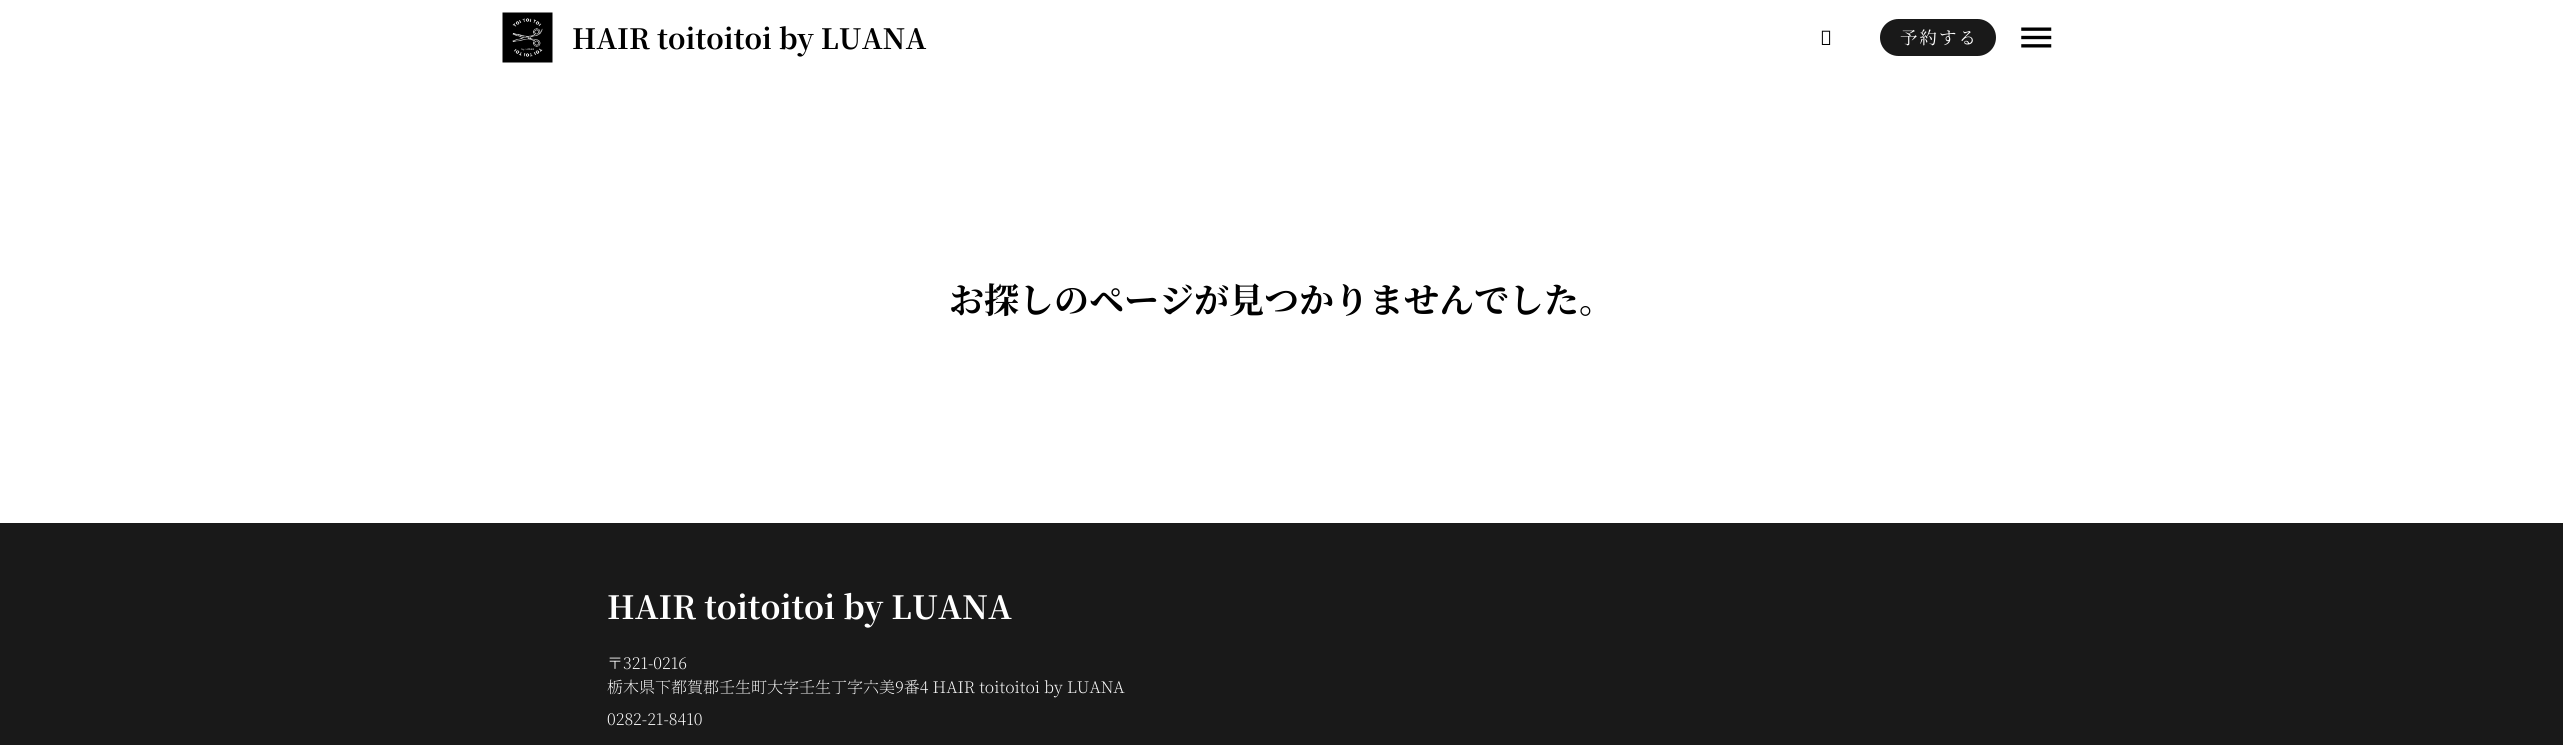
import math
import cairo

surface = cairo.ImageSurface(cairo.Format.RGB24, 2563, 745)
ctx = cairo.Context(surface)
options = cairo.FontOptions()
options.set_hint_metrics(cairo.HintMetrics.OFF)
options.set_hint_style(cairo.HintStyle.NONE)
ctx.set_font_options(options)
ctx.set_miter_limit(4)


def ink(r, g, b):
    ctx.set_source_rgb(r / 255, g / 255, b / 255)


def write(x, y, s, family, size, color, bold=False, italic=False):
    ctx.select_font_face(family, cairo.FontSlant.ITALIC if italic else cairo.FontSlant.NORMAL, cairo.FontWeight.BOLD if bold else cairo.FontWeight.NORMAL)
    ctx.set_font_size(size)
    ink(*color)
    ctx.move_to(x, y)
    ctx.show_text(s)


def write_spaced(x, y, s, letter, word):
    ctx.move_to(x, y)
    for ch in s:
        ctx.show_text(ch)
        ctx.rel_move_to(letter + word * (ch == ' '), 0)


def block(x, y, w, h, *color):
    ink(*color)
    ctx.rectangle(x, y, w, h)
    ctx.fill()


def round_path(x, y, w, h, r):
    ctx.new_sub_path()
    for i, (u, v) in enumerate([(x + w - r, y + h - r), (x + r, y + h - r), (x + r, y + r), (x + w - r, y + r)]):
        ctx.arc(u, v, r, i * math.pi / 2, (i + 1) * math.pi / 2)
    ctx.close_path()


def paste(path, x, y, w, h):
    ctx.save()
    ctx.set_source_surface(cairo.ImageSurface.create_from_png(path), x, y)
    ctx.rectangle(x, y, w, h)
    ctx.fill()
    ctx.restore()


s1 = dict(family="Noto Serif JP", size=28, color=(0, 0, 0), bold=True)
s2 = dict(family="Noto Serif JP", size=35, color=(0, 0, 0), bold=True)
s3 = dict(family="Noto Serif JP", size=32, color=(255, 255, 255), bold=True)
s4 = dict(family="Noto Serif JP ExtraLight", size=16, color=(255, 255, 255))

ink(255, 255, 255)
ctx.paint()
paste("pic1.png", 502, 12, 51, 51)
write(572, 49, "HAIR toitoitoi by LUANA", **s1)
paste("pic2.png", 1821, 30, 10, 15)
ink(25, 25, 25)
round_path(1880, 19, 116, 37, 18.5)
ctx.fill()
ctx.select_font_face("Noto Serif JP")
ctx.set_font_size(17.5)
ink(255, 255, 255)
write_spaced(1900, 44, "予約する", 2, 0)
paste("pic3.png", 2021, 27, 31, 21)
write(949, 313, "お探しのページが見つかりませんでした。", **s2)
block(0, 523, 2563, 222, 25, 25, 25)
write(607, 619, "HAIR toitoitoi by LUANA", **s3)
write(607, 669, "〒321-0216", **s4)
write(607, 693, "栃木県下都賀郡壬生町大字壬生丁字六美9番4 HAIR toitoitoi by LUANA", **s4)
write(607, 725, "0282-21-8410", **s4)
surface.write_to_png("screenshot.png")
